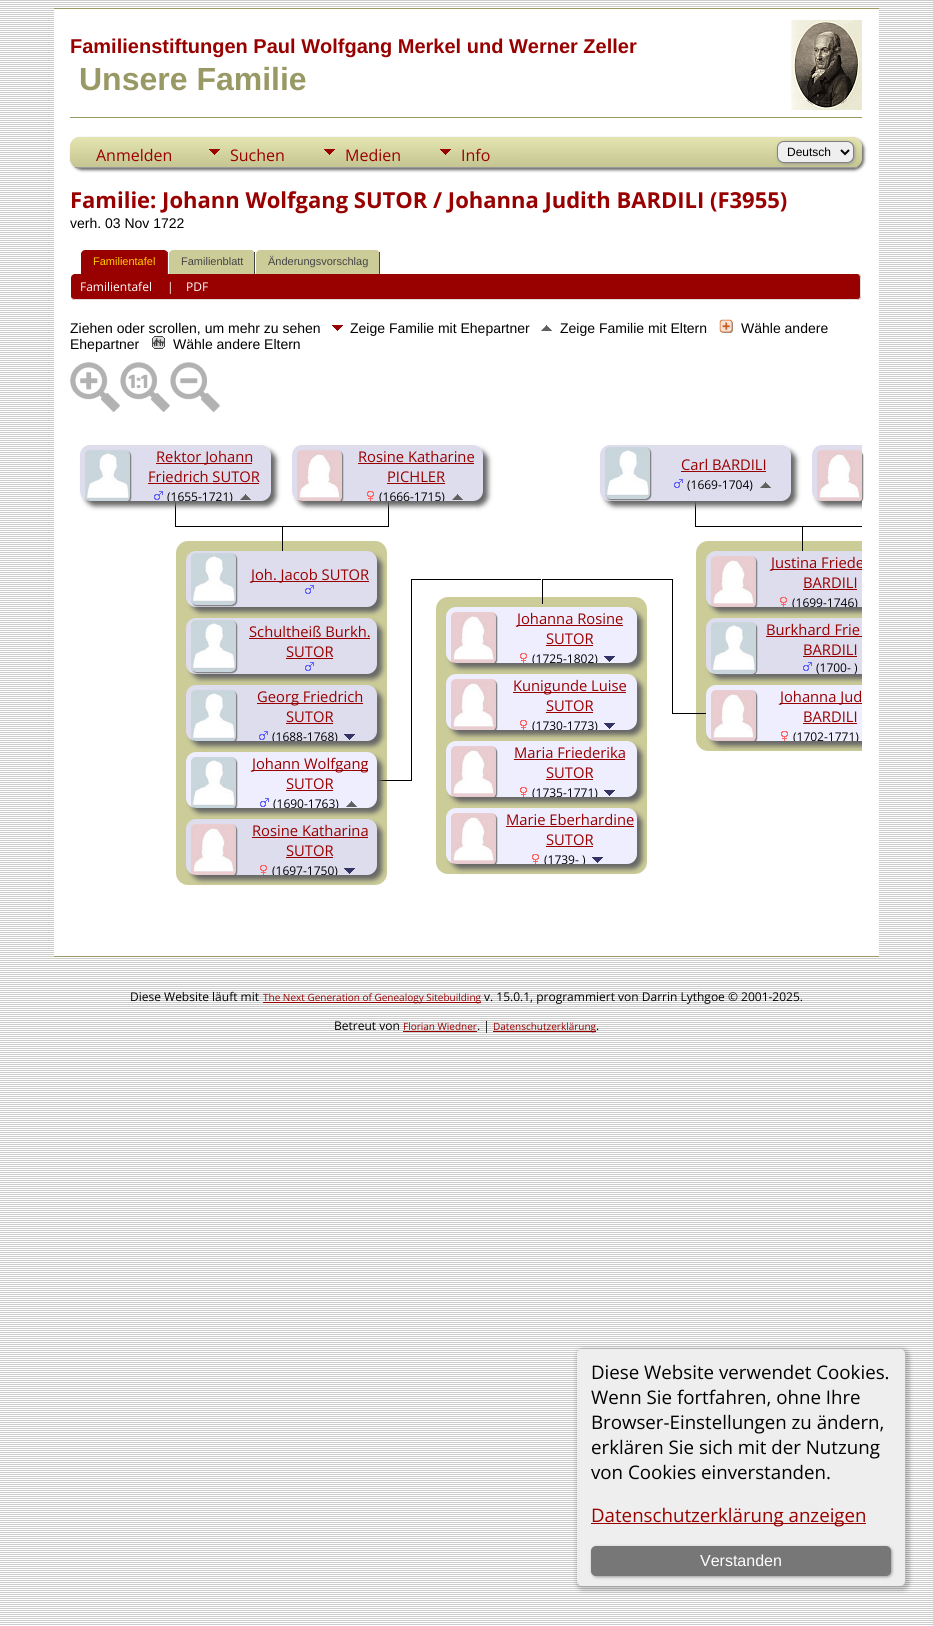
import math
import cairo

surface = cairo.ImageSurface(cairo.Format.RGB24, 933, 1626)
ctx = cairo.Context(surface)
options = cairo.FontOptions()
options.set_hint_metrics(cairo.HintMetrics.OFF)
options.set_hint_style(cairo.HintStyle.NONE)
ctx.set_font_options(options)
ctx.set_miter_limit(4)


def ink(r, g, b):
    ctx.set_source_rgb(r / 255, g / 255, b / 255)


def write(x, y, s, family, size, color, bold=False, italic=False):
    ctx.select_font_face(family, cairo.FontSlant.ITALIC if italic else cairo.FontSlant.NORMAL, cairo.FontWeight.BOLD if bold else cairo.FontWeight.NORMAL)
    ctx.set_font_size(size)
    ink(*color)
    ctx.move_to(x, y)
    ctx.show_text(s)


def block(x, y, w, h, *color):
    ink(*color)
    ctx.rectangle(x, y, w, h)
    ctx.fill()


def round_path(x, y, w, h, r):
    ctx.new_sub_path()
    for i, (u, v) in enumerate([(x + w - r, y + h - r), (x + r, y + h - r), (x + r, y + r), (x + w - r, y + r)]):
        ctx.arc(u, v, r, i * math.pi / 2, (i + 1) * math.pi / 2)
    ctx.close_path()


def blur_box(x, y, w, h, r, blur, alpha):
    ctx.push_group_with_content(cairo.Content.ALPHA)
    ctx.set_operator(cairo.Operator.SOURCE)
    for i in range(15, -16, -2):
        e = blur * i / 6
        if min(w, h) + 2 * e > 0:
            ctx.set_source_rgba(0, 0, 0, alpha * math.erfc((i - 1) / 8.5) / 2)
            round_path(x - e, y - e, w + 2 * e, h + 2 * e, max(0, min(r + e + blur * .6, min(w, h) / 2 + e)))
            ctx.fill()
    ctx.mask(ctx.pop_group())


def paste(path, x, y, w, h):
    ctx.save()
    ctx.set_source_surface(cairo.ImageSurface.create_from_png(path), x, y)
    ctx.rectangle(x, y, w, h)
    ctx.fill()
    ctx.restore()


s1 = dict(family="Liberation Sans", size=20, color=(153, 0, 0), bold=True)
s2 = dict(family="Liberation Sans", size=32, color=(153, 153, 102), bold=True)
s3 = dict(family="Open Sans", size=16, color=(153, 0, 0))
s4 = dict(family="Liberation Sans", size=12, color=(0, 0, 0))
s5 = dict(family="Open Sans", size=22, color=(153, 0, 0), bold=True)
s6 = dict(family="Liberation Sans", size=14, color=(0, 0, 0))
s7 = dict(family="Liberation Sans", size=11, color=(255, 204, 0))
s8 = dict(family="Liberation Sans", size=11, color=(68, 68, 68))
s9 = dict(family="Open Sans", size=12, color=(255, 255, 255))
s10 = dict(family="Open Sans", size=14.75, color=(153, 0, 0))
s11 = dict(family="Open Sans", size=12, color=(0, 0, 0))
s12 = dict(family="Open Sans", size=18.7, color=(0, 0, 0))
s13 = dict(family="Open Sans", size=18.7, color=(153, 0, 0))
s14 = dict(family="Liberation Sans", size=16, color=(255, 255, 255))
s15 = dict(family="Open Sans", size=10, color=(153, 0, 0))

ink(255, 255, 255)
ctx.paint()
paste("pic1.png", 0, 0, 933, 1625)
block(54, 8, 825, 1, 153, 153, 102)
block(54, 10, 825, 945, 255, 255, 255)
block(54, 956, 825, 1, 153, 153, 102)
write(70, 53, "Familienstiftungen Paul Wolfgang Merkel und Werner Zeller", **s1)
write(79, 90, "Unsere Familie", **s2)
paste("pic2.png", 791, 20, 71, 90)
block(70, 117, 792, 1, 153, 153, 102)
ink(102, 102, 102)
blur_box(72, 139, 792, 31, 10, 1.5, 1)
ink(204, 204, 153)
round_path(70, 137, 792, 31, 10)
ctx.fill()
ctx.save()
round_path(70, 137, 792, 31, 10)
ctx.clip()
gradient = cairo.LinearGradient(466, 137, 466, 167)
gradient.add_color_stop_rgba(0, 0.898, 0.898, 0.694, 1)
gradient.add_color_stop_rgba(1, 0.773, 0.773, 0.569, 1)
ctx.set_source(gradient)
ctx.new_path()
ctx.move_to(80, 137)
ctx.line_to(852, 137)
ctx.curve_to(857.5, 137, 862, 141.5, 862, 147)
ctx.line_to(862, 167)
ctx.line_to(70, 167)
ctx.line_to(70, 147)
ctx.curve_to(70, 141.5, 74.5, 137, 80, 137)
ctx.close_path()
ctx.fill()
ctx.restore()
block(75, 167, 782, 1, 153, 153, 153)
write(96, 161, "Anmelden", **s3)
paste("pic3.png", 200, 137, 115, 30)
write(230, 161, "Suchen", **s3)
paste("pic4.png", 315, 137, 116, 30)
write(345, 161, "Medien", **s3)
paste("pic5.png", 431, 137, 89, 30)
write(461, 161, "Info", **s3)
ink(153, 153, 153)
blur_box(778, 142, 77, 22, 7, 1.5, 1)
ink(239, 239, 239)
round_path(777.5, 141.5, 76, 21, 6.5)
ctx.fill_preserve()
ink(128, 128, 128)
ctx.set_line_width(1)
ctx.stroke()
ctx.new_path()
ctx.move_to(841, 150)
ctx.line_to(845, 154)
ctx.line_to(849, 150)
ink(0, 0, 0)
ctx.set_line_width(2)
ctx.stroke()
write(787, 156, "Deutsch", **s4)
write(70, 208, "Familie: Johann Wolfgang SUTOR / Johanna Judith BARDILI (F3955)", **s5)
write(70, 228, "verh. 03 Nov 1722", **s6)
ink(153, 0, 0)
ctx.new_path()
ctx.move_to(85, 250)
ctx.line_to(164, 250)
ctx.curve_to(166, 250, 168, 252, 168, 254)
ctx.line_to(168, 274)
ctx.line_to(81, 274)
ctx.line_to(81, 254)
ctx.curve_to(81, 252, 83, 250, 85, 250)
ctx.close_path()
ctx.fill()
block(167, 252, 1, 22, 68, 68, 68)
write(93, 265, "Familientafel", **s7)
ink(204, 204, 153)
ctx.new_path()
ctx.move_to(173, 250)
ctx.line_to(251, 250)
ctx.curve_to(253, 250, 255, 252, 255, 254)
ctx.line_to(255, 274)
ctx.line_to(169, 274)
ctx.line_to(169, 254)
ctx.curve_to(169, 252, 171, 250, 173, 250)
ctx.close_path()
ctx.fill()
block(254, 252, 1, 22, 68, 68, 68)
write(181, 265, "Familienblatt", **s8)
ink(204, 204, 153)
ctx.new_path()
ctx.move_to(260, 250)
ctx.line_to(376, 250)
ctx.curve_to(378, 250, 380, 252, 380, 254)
ctx.line_to(380, 274)
ctx.line_to(256, 274)
ctx.line_to(256, 254)
ctx.curve_to(256, 252, 258, 250, 260, 250)
ctx.close_path()
ctx.fill()
block(379, 252, 1, 22, 68, 68, 68)
write(268, 265, "Änderungsvorschlag", **s8)
ink(153, 0, 0)
round_path(71, 274, 790, 26, 4)
ctx.fill()
ink(221, 221, 221)
ctx.set_fill_rule(cairo.FillRule.EVEN_ODD)
ctx.new_path()
ctx.move_to(75, 274)
ctx.line_to(857, 274)
ctx.curve_to(859, 274, 861, 276, 861, 278)
ctx.line_to(861, 296)
ctx.curve_to(861, 298, 859, 300, 857, 300)
ctx.line_to(75, 300)
ctx.curve_to(73, 300, 71, 298, 71, 296)
ctx.line_to(71, 278)
ctx.curve_to(71, 276, 73, 274, 75, 274)
ctx.close_path()
ctx.move_to(75, 274)
ctx.line_to(857, 274)
ctx.curve_to(859, 274, 860, 276, 860, 278)
ctx.line_to(860, 296)
ctx.curve_to(860, 298, 859, 299, 857, 299)
ctx.line_to(75, 299)
ctx.curve_to(73, 299, 71, 298, 71, 296)
ctx.line_to(71, 278)
ctx.curve_to(71, 276, 73, 274, 75, 274)
ctx.close_path()
ctx.fill()
write(80, 291, "Familientafel", **s9)
write(167, 291, "|", **s9)
write(186, 291, "PDF", **s9)
write(70, 333, "Ziehen oder scrollen, um mehr zu sehen", **s6)
paste("pic6.png", 332, 325, 11, 6)
write(350, 333, "Zeige Familie mit Ehepartner", **s6)
paste("pic7.png", 541, 325, 11, 6)
write(560, 333, "Zeige Familie mit Eltern", **s6)
paste("pic8.png", 719, 319, 14, 14)
write(741, 333, "Wähle andere", **s6)
write(70, 349, "Ehepartner", **s6)
paste("pic9.png", 152, 336, 13, 13)
write(173, 349, "Wähle andere Eltern", **s6)
paste("pic10.png", 70, 362, 50, 50)
paste("pic11.png", 120, 362, 50, 50)
paste("pic12.png", 170, 362, 50, 50)
block(388, 501, 1, 26, 0, 0, 0)
block(175, 526, 214, 1, 0, 0, 0)
block(175, 501, 1, 26, 0, 0, 0)
ink(102, 102, 102)
blur_box(85, 450, 191, 56, 10, 2.5, 1)
ink(221, 221, 238)
round_path(80, 445, 191, 56, 10)
ctx.fill()
ctx.save()
ctx.set_fill_rule(cairo.FillRule.WINDING)
round_path(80, 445, 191, 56, 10)
ctx.clip()
ink(119, 119, 119)
blur_box(86, 451, 45, 52, 5, 0.5, 1)
ctx.restore()
paste("pic13.png", 85, 450, 45, 51)
block(156, 463, 96, 1, 153, 0, 0)
write(156, 462, "Rektor Johann", **s10)
write(148, 482, "Friedrich SUTOR", **s10)
block(148, 483, 111, 1, 153, 0, 0)
paste("pic14.png", 154, 491, 9, 9)
ctx.save()
ctx.set_fill_rule(cairo.FillRule.WINDING)
round_path(80, 445, 191, 56, 10)
ctx.clip()
write(167, 501, "(1655-1721)", **s11)
ctx.restore()
paste("pic15.png", 240, 494, 11, 6)
ink(102, 102, 102)
blur_box(297, 450, 191, 56, 10, 2.5, 1)
ink(221, 221, 238)
round_path(292, 445, 191, 56, 10)
ctx.fill()
ctx.save()
ctx.set_fill_rule(cairo.FillRule.WINDING)
round_path(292, 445, 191, 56, 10)
ctx.clip()
ink(119, 119, 119)
blur_box(298, 451, 45, 52, 5, 0.5, 1)
ctx.restore()
paste("pic16.png", 297, 450, 45, 51)
write(358, 462, "Rosine Katharine", **s10)
block(358, 463, 116, 1, 153, 0, 0)
write(387, 482, "PICHLER", **s10)
block(387, 483, 58, 1, 153, 0, 0)
paste("pic17.png", 367, 491, 7, 10)
ctx.save()
ctx.set_fill_rule(cairo.FillRule.WINDING)
round_path(292, 445, 191, 56, 10)
ctx.clip()
write(379, 501, "(1666-1715)", **s11)
ctx.restore()
paste("pic15.png", 452, 494, 11, 6)
block(695, 526, 167, 1, 0, 0, 0)
block(695, 501, 1, 26, 0, 0, 0)
ink(102, 102, 102)
blur_box(605, 450, 191, 56, 10, 2.5, 1)
ink(221, 221, 238)
round_path(600, 445, 191, 56, 10)
ctx.fill()
ink(119, 119, 119)
blur_box(606, 448, 45, 52, 5, 0.5, 1)
paste("pic18.png", 605, 447, 45, 52)
write(681, 470, "Carl BARDILI", **s10)
block(681, 471, 85, 1, 153, 0, 0)
paste("pic14.png", 674, 479, 9, 9)
write(687, 489, "(1669-1704)", **s11)
paste("pic15.png", 760, 482, 11, 6)
ctx.save()
ctx.set_fill_rule(cairo.FillRule.WINDING)
ctx.rectangle(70, 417, 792, 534)
ctx.clip()
ink(102, 102, 102)
blur_box(817, 450, 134, 56, 10, 2.5, 1)
ctx.restore()
ink(221, 221, 238)
ctx.new_path()
ctx.move_to(822, 445)
ctx.line_to(862, 445)
ctx.line_to(862, 501)
ctx.line_to(822, 501)
ctx.curve_to(816.5, 501, 812, 496.5, 812, 491)
ctx.line_to(812, 455)
ctx.curve_to(812, 449.5, 816.5, 445, 822, 445)
ctx.close_path()
ctx.fill()
ctx.save()
ctx.set_fill_rule(cairo.FillRule.WINDING)
round_path(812, 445, 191, 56, 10)
ctx.clip()
ctx.set_fill_rule(cairo.FillRule.EVEN_ODD)
ctx.new_path()
ctx.move_to(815, 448)
ctx.line_to(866, 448)
ctx.line_to(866, 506)
ctx.line_to(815, 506)
ctx.close_path()
ctx.move_to(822, 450)
ctx.line_to(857, 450)
ctx.curve_to(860, 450, 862, 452, 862, 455)
ctx.line_to(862, 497)
ctx.curve_to(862, 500, 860, 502, 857, 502)
ctx.line_to(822, 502)
ctx.curve_to(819, 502, 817, 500, 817, 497)
ctx.line_to(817, 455)
ctx.curve_to(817, 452, 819, 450, 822, 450)
ctx.close_path()
ctx.clip()
ink(119, 119, 119)
blur_box(818, 451, 45, 52, 5, 0.5, 1)
ctx.restore()
paste("pic19.png", 817, 450, 45, 51)
ink(204, 204, 153)
round_path(176, 541, 211, 344, 12)
ctx.fill()
block(282, 526, 1, 25, 0, 0, 0)
ink(204, 204, 153)
ctx.new_path()
ctx.move_to(708, 541)
ctx.line_to(862, 541)
ctx.line_to(862, 751)
ctx.line_to(708, 751)
ctx.curve_to(701.5, 751, 696, 745.5, 696, 739)
ctx.line_to(696, 553)
ctx.curve_to(696, 546.5, 701.5, 541, 708, 541)
ctx.close_path()
ctx.fill()
block(802, 526, 1, 25, 0, 0, 0)
ink(102, 102, 102)
blur_box(191, 556, 191, 56, 10, 2.5, 1)
ink(221, 221, 238)
round_path(186, 551, 191, 56, 10)
ctx.fill()
ink(119, 119, 119)
blur_box(192, 554, 45, 52, 5, 0.5, 1)
paste("pic20.png", 191, 553, 45, 52)
block(251, 581, 118, 1, 153, 0, 0)
write(251, 580, "Joh. Jacob SUTOR", **s10)
paste("pic14.png", 305, 585, 9, 9)
ctx.save()
ctx.set_fill_rule(cairo.FillRule.WINDING)
ctx.rectangle(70, 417, 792, 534)
ctx.clip()
ink(102, 102, 102)
blur_box(711, 556, 191, 56, 10, 2.5, 1)
ctx.restore()
ink(221, 221, 238)
ctx.new_path()
ctx.move_to(716, 551)
ctx.line_to(862, 551)
ctx.line_to(862, 607)
ctx.line_to(716, 607)
ctx.curve_to(710.5, 607, 706, 602.5, 706, 597)
ctx.line_to(706, 561)
ctx.curve_to(706, 555.5, 710.5, 551, 716, 551)
ctx.close_path()
ctx.fill()
ctx.save()
ctx.set_fill_rule(cairo.FillRule.WINDING)
round_path(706, 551, 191, 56, 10)
ctx.clip()
ink(119, 119, 119)
blur_box(712, 557, 45, 52, 5, 0.5, 1)
ctx.restore()
paste("pic21.png", 711, 556, 45, 51)
block(771, 569, 91, 1, 153, 0, 0)
ctx.save()
ctx.set_fill_rule(cairo.FillRule.WINDING)
ctx.rectangle(70, 417, 792, 534)
ctx.clip()
write(771, 568, "Justina Friede", **s10)
ctx.restore()
write(803, 588, "BARDILI", **s10)
block(803, 589, 54, 1, 153, 0, 0)
paste("pic17.png", 780, 597, 7, 10)
ctx.save()
ctx.set_fill_rule(cairo.FillRule.WINDING)
round_path(706, 551, 191, 56, 10)
ctx.clip()
write(792, 607, "(1699-1746)", **s11)
ctx.restore()
block(411, 579, 1, 202, 0, 0, 0)
block(377, 780, 35, 1, 0, 0, 0)
block(411, 579, 130, 1, 0, 0, 0)
block(542, 579, 130, 1, 0, 0, 0)
ink(204, 204, 153)
round_path(436, 597, 211, 277, 12)
ctx.fill()
block(542, 579, 1, 25, 0, 0, 0)
block(672, 713, 35, 1, 0, 0, 0)
block(672, 579, 1, 135, 0, 0, 0)
ink(102, 102, 102)
blur_box(191, 623, 191, 56, 10, 2.5, 1)
ink(221, 221, 238)
round_path(186, 618, 191, 56, 10)
ctx.fill()
ink(119, 119, 119)
blur_box(192, 621, 45, 52, 5, 0.5, 1)
paste("pic20.png", 191, 620, 45, 52)
write(249, 637, "Schultheiß Burkh.", **s10)
block(249, 638, 121, 1, 153, 0, 0)
write(286, 657, "SUTOR", **s10)
block(286, 658, 47, 1, 153, 0, 0)
paste("pic14.png", 305, 662, 9, 9)
ink(102, 102, 102)
blur_box(451, 612, 191, 56, 10, 2.5, 1)
ink(238, 238, 255)
round_path(446, 607, 191, 56, 10)
ctx.fill()
ctx.save()
ctx.set_fill_rule(cairo.FillRule.WINDING)
round_path(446, 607, 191, 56, 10)
ctx.clip()
ink(119, 119, 119)
blur_box(452, 613, 45, 52, 5, 0.5, 1)
ctx.restore()
paste("pic22.png", 451, 612, 45, 51)
block(517, 625, 106, 1, 153, 0, 0)
write(517, 624, "Johanna Rosine", **s10)
write(546, 644, "SUTOR", **s10)
block(546, 645, 47, 1, 153, 0, 0)
paste("pic23.png", 520, 653, 7, 10)
ctx.save()
ctx.set_fill_rule(cairo.FillRule.WINDING)
round_path(446, 607, 191, 56, 10)
ctx.clip()
write(532, 663, "(1725-1802)", **s11)
ctx.restore()
paste("pic24.png", 604, 656, 11, 6)
ctx.save()
ctx.set_fill_rule(cairo.FillRule.WINDING)
ctx.rectangle(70, 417, 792, 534)
ctx.clip()
ink(102, 102, 102)
blur_box(711, 623, 191, 56, 10, 2.5, 1)
ctx.restore()
ink(221, 221, 238)
ctx.new_path()
ctx.move_to(716, 618)
ctx.line_to(862, 618)
ctx.line_to(862, 674)
ctx.line_to(716, 674)
ctx.curve_to(710.5, 674, 706, 669.5, 706, 664)
ctx.line_to(706, 628)
ctx.curve_to(706, 622.5, 710.5, 618, 716, 618)
ctx.close_path()
ctx.fill()
ctx.save()
ctx.new_path()
ctx.move_to(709, 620)
ctx.line_to(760, 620)
ctx.line_to(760, 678)
ctx.line_to(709, 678)
ctx.close_path()
ctx.move_to(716, 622)
ctx.line_to(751, 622)
ctx.curve_to(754, 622, 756, 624, 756, 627)
ctx.line_to(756, 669)
ctx.curve_to(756, 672, 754, 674, 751, 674)
ctx.line_to(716, 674)
ctx.curve_to(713, 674, 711, 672, 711, 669)
ctx.line_to(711, 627)
ctx.curve_to(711, 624, 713, 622, 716, 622)
ctx.close_path()
ctx.clip()
ink(119, 119, 119)
blur_box(712, 623, 45, 52, 5, 0.5, 1)
ctx.restore()
paste("pic25.png", 711, 622, 45, 52)
write(766, 635, "Burkhard Frie", **s10)
block(766, 636, 96, 1, 153, 0, 0)
write(803, 655, "BARDILI", **s10)
block(803, 656, 54, 1, 153, 0, 0)
paste("pic14.png", 803, 662, 9, 9)
write(816, 672, "(1700- )", **s11)
ink(102, 102, 102)
blur_box(191, 690, 191, 56, 10, 2.5, 1)
ink(221, 221, 238)
round_path(186, 685, 191, 56, 10)
ctx.fill()
ctx.save()
ctx.set_fill_rule(cairo.FillRule.WINDING)
round_path(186, 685, 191, 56, 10)
ctx.clip()
ink(119, 119, 119)
blur_box(192, 691, 45, 52, 5, 0.5, 1)
ctx.restore()
paste("pic26.png", 191, 690, 45, 51)
block(257, 703, 106, 1, 153, 0, 0)
write(257, 702, "Georg Friedrich", **s10)
write(286, 722, "SUTOR", **s10)
block(286, 723, 47, 1, 153, 0, 0)
paste("pic14.png", 259, 731, 9, 9)
ctx.save()
ctx.set_fill_rule(cairo.FillRule.WINDING)
round_path(186, 685, 191, 56, 10)
ctx.clip()
write(272, 741, "(1688-1768)", **s11)
ctx.restore()
paste("pic27.png", 344, 734, 11, 6)
ink(102, 102, 102)
blur_box(451, 679, 191, 56, 10, 2.5, 1)
ink(238, 238, 255)
round_path(446, 674, 191, 56, 10)
ctx.fill()
ctx.save()
ctx.set_fill_rule(cairo.FillRule.WINDING)
round_path(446, 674, 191, 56, 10)
ctx.clip()
ink(119, 119, 119)
blur_box(452, 680, 45, 52, 5, 0.5, 1)
ctx.restore()
paste("pic22.png", 451, 679, 45, 51)
block(513, 692, 113, 1, 153, 0, 0)
write(513, 691, "Kunigunde Luise", **s10)
write(546, 711, "SUTOR", **s10)
block(546, 712, 47, 1, 153, 0, 0)
paste("pic23.png", 520, 720, 7, 10)
ctx.save()
ctx.set_fill_rule(cairo.FillRule.WINDING)
round_path(446, 674, 191, 56, 10)
ctx.clip()
write(532, 730, "(1730-1773)", **s11)
ctx.restore()
paste("pic24.png", 604, 723, 11, 6)
ctx.save()
ctx.set_fill_rule(cairo.FillRule.WINDING)
ctx.rectangle(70, 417, 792, 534)
ctx.clip()
ink(102, 102, 102)
blur_box(711, 690, 191, 56, 10, 2.5, 1)
ctx.restore()
ink(238, 238, 255)
ctx.new_path()
ctx.move_to(716, 685)
ctx.line_to(862, 685)
ctx.line_to(862, 741)
ctx.line_to(716, 741)
ctx.curve_to(710.5, 741, 706, 736.5, 706, 731)
ctx.line_to(706, 695)
ctx.curve_to(706, 689.5, 710.5, 685, 716, 685)
ctx.close_path()
ctx.fill()
ctx.save()
ctx.set_fill_rule(cairo.FillRule.WINDING)
round_path(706, 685, 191, 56, 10)
ctx.clip()
ink(119, 119, 119)
blur_box(712, 691, 45, 52, 5, 0.5, 1)
ctx.restore()
paste("pic28.png", 711, 690, 45, 51)
block(780, 703, 82, 1, 153, 0, 0)
write(780, 702, "Johanna Jud", **s10)
write(803, 722, "BARDILI", **s10)
block(803, 723, 54, 1, 153, 0, 0)
paste("pic23.png", 781, 731, 7, 10)
ctx.save()
ctx.set_fill_rule(cairo.FillRule.WINDING)
round_path(706, 685, 191, 56, 10)
ctx.clip()
write(793, 741, "(1702-1771)", **s11)
ctx.restore()
ink(102, 102, 102)
blur_box(191, 824, 191, 56, 10, 2.5, 1)
ink(221, 221, 238)
round_path(186, 819, 191, 56, 10)
ctx.fill()
ink(102, 102, 102)
blur_box(191, 757, 191, 56, 10, 2.5, 1)
ink(238, 238, 255)
round_path(186, 752, 191, 56, 10)
ctx.fill()
ctx.save()
ctx.set_fill_rule(cairo.FillRule.WINDING)
round_path(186, 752, 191, 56, 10)
ctx.clip()
ink(119, 119, 119)
blur_box(192, 758, 45, 52, 5, 0.5, 1)
ctx.restore()
paste("pic29.png", 191, 757, 45, 51)
block(252, 770, 116, 1, 153, 0, 0)
write(252, 769, "Johann Wolfgang", **s10)
write(286, 789, "SUTOR", **s10)
block(286, 790, 47, 1, 153, 0, 0)
paste("pic30.png", 260, 798, 9, 9)
ctx.save()
ctx.set_fill_rule(cairo.FillRule.WINDING)
round_path(186, 752, 191, 56, 10)
ctx.clip()
write(273, 808, "(1690-1763)", **s11)
ctx.restore()
paste("pic31.png", 346, 801, 11, 6)
ink(102, 102, 102)
blur_box(451, 746, 191, 56, 10, 2.5, 1)
ink(238, 238, 255)
round_path(446, 741, 191, 56, 10)
ctx.fill()
ctx.save()
ctx.set_fill_rule(cairo.FillRule.WINDING)
round_path(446, 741, 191, 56, 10)
ctx.clip()
ink(119, 119, 119)
blur_box(452, 747, 45, 52, 5, 0.5, 1)
ctx.restore()
paste("pic22.png", 451, 746, 45, 51)
write(514, 758, "Maria Friederika", **s10)
block(514, 759, 111, 1, 153, 0, 0)
write(546, 778, "SUTOR", **s10)
block(546, 779, 47, 1, 153, 0, 0)
paste("pic23.png", 520, 787, 7, 10)
ctx.save()
ctx.set_fill_rule(cairo.FillRule.WINDING)
round_path(446, 741, 191, 56, 10)
ctx.clip()
write(532, 797, "(1735-1771)", **s11)
ctx.restore()
paste("pic24.png", 604, 790, 11, 6)
ctx.save()
ctx.set_fill_rule(cairo.FillRule.WINDING)
round_path(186, 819, 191, 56, 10)
ctx.clip()
ink(119, 119, 119)
blur_box(192, 825, 45, 52, 5, 0.5, 1)
ctx.restore()
paste("pic32.png", 191, 824, 45, 51)
write(252, 836, "Rosine Katharina", **s10)
block(252, 837, 116, 1, 153, 0, 0)
write(286, 856, "SUTOR", **s10)
block(286, 857, 47, 1, 153, 0, 0)
paste("pic17.png", 260, 865, 7, 10)
ctx.save()
ctx.set_fill_rule(cairo.FillRule.WINDING)
round_path(186, 819, 191, 56, 10)
ctx.clip()
write(272, 875, "(1697-1750)", **s11)
ctx.restore()
paste("pic27.png", 344, 868, 11, 6)
ink(102, 102, 102)
blur_box(451, 813, 191, 56, 10, 2.5, 1)
ink(238, 238, 255)
round_path(446, 808, 191, 56, 10)
ctx.fill()
ctx.save()
ctx.set_fill_rule(cairo.FillRule.WINDING)
round_path(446, 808, 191, 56, 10)
ctx.clip()
ink(119, 119, 119)
blur_box(452, 814, 45, 52, 5, 0.5, 1)
ctx.restore()
paste("pic22.png", 451, 813, 45, 51)
write(506, 825, "Marie Eberhardine", **s10)
block(506, 826, 128, 1, 153, 0, 0)
write(546, 845, "SUTOR", **s10)
block(546, 846, 47, 1, 153, 0, 0)
paste("pic23.png", 532, 854, 7, 10)
ctx.save()
ctx.set_fill_rule(cairo.FillRule.WINDING)
round_path(446, 808, 191, 56, 10)
ctx.clip()
write(544, 864, "(1739- )", **s11)
ctx.restore()
paste("pic24.png", 592, 857, 11, 6)
ink(0, 0, 0)
blur_box(576, 1348, 334, 243, 8, 2, 0.2)
ink(238, 238, 238)
round_path(577, 1349, 328, 237, 5)
ctx.fill()
write(591, 1379, "Diese Website verwendet Cookies.", **s12)
write(591, 1404, "Wenn Sie fortfahren, ohne Ihre", **s12)
write(591, 1429, "Browser-Einstellungen zu ändern,", **s12)
write(591, 1454, "erklären Sie sich mit der Nutzung", **s12)
write(591, 1479, "von Cookies einverstanden.", **s12)
block(591, 1523, 275, 1, 153, 0, 0)
write(591, 1522, "Datenschutzerklärung anzeigen", **s13)
ink(153, 153, 153)
blur_box(592, 1547, 300, 30, 5, 1.5, 1)
ink(119, 119, 119)
round_path(591, 1546, 300, 30, 5)
ctx.fill()
write(700, 1566, "Verstanden", **s14)
write(130, 1001, "Diese Website läuft mit", **s11)
block(263, 1002, 218, 1, 153, 0, 0)
write(263, 1001, "The Next Generation of Genealogy Sitebuilding", **s15)
write(484, 1001, "v. 15.0.1, programmiert von Darrin Lythgoe © 2001-2025.", **s11)
write(334, 1030, "Betreut von", **s11)
write(403, 1030, "Florian Wiedner", **s15)
block(403, 1031, 74, 1, 153, 0, 0)
write(477, 1030, ". |", **s11)
block(493, 1031, 103, 1, 153, 0, 0)
write(493, 1030, "Datenschutzerklärung", **s15)
write(596, 1030, ".", **s11)
surface.write_to_png("screenshot.png")
